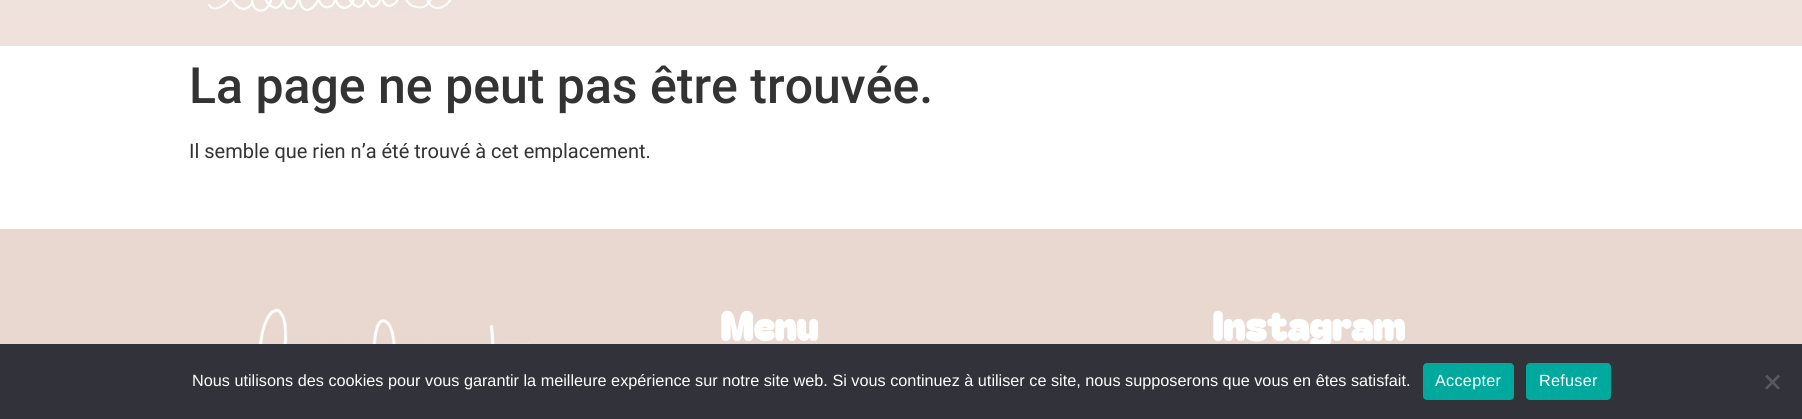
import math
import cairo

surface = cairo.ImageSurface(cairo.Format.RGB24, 1802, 419)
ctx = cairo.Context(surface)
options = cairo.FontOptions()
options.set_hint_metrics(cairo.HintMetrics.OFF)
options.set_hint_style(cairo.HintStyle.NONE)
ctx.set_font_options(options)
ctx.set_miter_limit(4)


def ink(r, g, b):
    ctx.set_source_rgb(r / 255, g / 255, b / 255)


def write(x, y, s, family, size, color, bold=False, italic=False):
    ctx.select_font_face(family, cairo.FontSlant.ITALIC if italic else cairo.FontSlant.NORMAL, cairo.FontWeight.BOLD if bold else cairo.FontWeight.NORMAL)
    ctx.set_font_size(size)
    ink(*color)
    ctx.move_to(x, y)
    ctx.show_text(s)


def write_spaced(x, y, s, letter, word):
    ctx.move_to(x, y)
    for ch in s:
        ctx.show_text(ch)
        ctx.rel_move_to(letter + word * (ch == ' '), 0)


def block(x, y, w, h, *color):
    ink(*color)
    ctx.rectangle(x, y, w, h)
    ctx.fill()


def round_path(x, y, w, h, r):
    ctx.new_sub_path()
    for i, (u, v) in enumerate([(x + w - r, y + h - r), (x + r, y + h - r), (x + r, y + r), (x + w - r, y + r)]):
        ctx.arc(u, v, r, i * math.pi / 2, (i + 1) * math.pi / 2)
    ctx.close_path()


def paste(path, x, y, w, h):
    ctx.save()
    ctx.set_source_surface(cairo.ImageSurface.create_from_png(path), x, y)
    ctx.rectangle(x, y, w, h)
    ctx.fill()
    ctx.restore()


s1 = dict(family="Roboto Medium", size=50, color=(51, 51, 51))
s2 = dict(family="Roboto", size=20, color=(51, 51, 51))
s3 = dict(family="Bagel Fat One", size=40, color=(255, 255, 255), bold=True)
s4 = dict(family="Liberation Sans", size=16.25, color=(255, 255, 255))

ink(255, 255, 255)
ctx.paint()
block(0, 0, 1802, 46, 239, 226, 220)
paste("pic1.png", 208, 0, 243, 12)
write(189, 103, "La page ne peut pas être trouvée.", **s1)
write(189, 158, "Il semble que rien n’a été trouvé à cet emplacement.", **s2)
block(0, 229, 1802, 115, 233, 216, 207)
paste("pic2.png", 258, 308, 272, 36)
write(720, 341, "Menu", **s3)
write(1212, 341, "Instagram", **s3)
block(0, 344, 1802, 75, 50, 50, 58)
write(192, 386, "Nous utilisons des cookies pour vous garantir la meilleure expérience sur notre site web. Si vous continuez à utiliser ce site, nous supposerons que vous en êtes satisfait.", **s4)
ink(0, 169, 157)
round_path(1423, 363, 91, 37, 4)
ctx.fill()
ink(255, 255, 255)
write_spaced(1435, 386, "Accepter", 0.25, 0)
ink(0, 169, 157)
round_path(1526, 363, 85, 37, 4)
ctx.fill()
ink(255, 255, 255)
write_spaced(1539, 386, "Refuser", 0.25, 0)
ink(89, 89, 93)
ctx.new_path()
ctx.move_to(1778, 374.5)
ctx.line_to(1780, 376.5)
ctx.line_to(1767, 389.5)
ctx.line_to(1765, 388)
ctx.close_path()
ctx.fill()
ctx.new_path()
ctx.move_to(1765, 376.5)
ctx.line_to(1767, 374.5)
ctx.line_to(1780, 388)
ctx.line_to(1778, 389.5)
ctx.close_path()
ctx.fill()
surface.write_to_png("screenshot.png")
